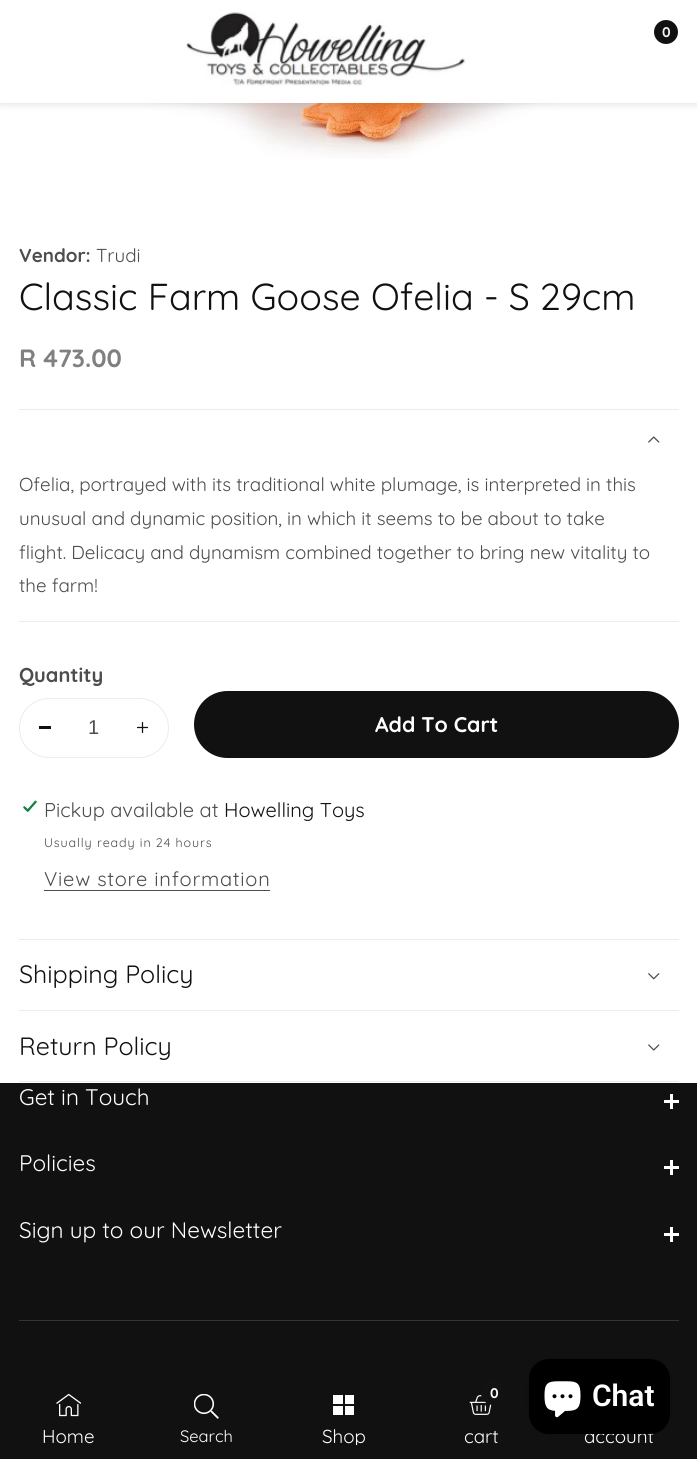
import math
import cairo

surface = cairo.ImageSurface(cairo.Format.RGB24, 697, 1459)
ctx = cairo.Context(surface)
options = cairo.FontOptions()
options.set_hint_metrics(cairo.HintMetrics.OFF)
options.set_hint_style(cairo.HintStyle.NONE)
ctx.set_font_options(options)
ctx.set_miter_limit(4)


def ink(r, g, b):
    ctx.set_source_rgb(r / 255, g / 255, b / 255)


def write(x, y, s, family, size, color, bold=False, italic=False):
    ctx.select_font_face(family, cairo.FontSlant.ITALIC if italic else cairo.FontSlant.NORMAL, cairo.FontWeight.BOLD if bold else cairo.FontWeight.NORMAL)
    ctx.set_font_size(size)
    ink(*color)
    ctx.move_to(x, y)
    ctx.show_text(s)


def write_spaced(x, y, s, letter, word):
    ctx.move_to(x, y)
    for ch in s:
        ctx.show_text(ch)
        ctx.rel_move_to(letter + word * (ch == ' '), 0)


def block(x, y, w, h, *color):
    ink(*color)
    ctx.rectangle(x, y, w, h)
    ctx.fill()


def round_path(x, y, w, h, r):
    ctx.new_sub_path()
    for i, (u, v) in enumerate([(x + w - r, y + h - r), (x + r, y + h - r), (x + r, y + r), (x + w - r, y + r)]):
        ctx.arc(u, v, r, i * math.pi / 2, (i + 1) * math.pi / 2)
    ctx.close_path()


def blur_box(x, y, w, h, r, blur, alpha):
    ctx.push_group_with_content(cairo.Content.ALPHA)
    ctx.set_operator(cairo.Operator.SOURCE)
    for i in range(15, -16, -2):
        e = blur * i / 6
        if min(w, h) + 2 * e > 0:
            ctx.set_source_rgba(0, 0, 0, alpha * math.erfc((i - 1) / 8.5) / 2)
            round_path(x - e, y - e, w + 2 * e, h + 2 * e, max(0, min(r + e + blur * .6, min(w, h) / 2 + e)))
            ctx.fill()
    ctx.mask(ctx.pop_group())


def paste(path, x, y, w, h):
    ctx.save()
    ctx.set_source_surface(cairo.ImageSurface.create_from_png(path), x, y)
    ctx.rectangle(x, y, w, h)
    ctx.fill()
    ctx.restore()


s1 = dict(family="Quicksand", size=14, color=(243, 243, 243), bold=True)
s2 = dict(family="Quicksand", size=18.75, color=(77, 77, 77), bold=True)
s3 = dict(family="Quicksand", size=18.75, color=(77, 77, 77))
s4 = dict(family="Quicksand", size=37.5, color=(17, 17, 17))
s5 = dict(family="Quicksand", size=25, color=(128, 128, 128), bold=True)
s6 = dict(family="Quicksand", size=20, color=(77, 77, 77), bold=True)
s7 = dict(family="Liberation Sans", size=20, color=(77, 77, 77))
s8 = dict(family="Quicksand", size=21.25, color=(255, 255, 255), bold=True)
s9 = dict(family="Quicksand", size=20, color=(77, 77, 77))
s10 = dict(family="Quicksand", size=20, color=(17, 17, 17))
s11 = dict(family="Quicksand", size=25, color=(17, 17, 17))
s12 = dict(family="Quicksand", size=22.5, color=(255, 255, 255))
s13 = dict(family="Quicksand", size=18.75, color=(255, 255, 255))
s14 = dict(family="Roboto SemiBold", size=30, color=(255, 255, 255))
s15 = dict(family="Quicksand", size=16.5, color=(255, 255, 255))
s16 = dict(family="Quicksand", size=14, color=(255, 255, 255), bold=True)

ink(255, 255, 255)
ctx.paint()
paste("pic2.png", 143, 103, 418, 56)
ink(0, 0, 0)
blur_box(0, 0, 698, 103, 0, 4.5, 0.15)
block(0, 0, 697, 103, 255, 255, 255)
paste("pic1.png", 185, 12, 281, 74)
ink(17, 17, 17)
ctx.arc(666, 32, 12, 0, 2 * math.pi)
ctx.fill()
write(662, 37, "0", **s1)
write(19, 262, "Vendor:", **s2)
write(96, 262, "Trudi", **s3)
write(19, 310, "Classic Farm Goose Ofelia - S 29cm", **s4)
write(19, 367, "R 473.00", **s5)
block(19, 409, 660, 1, 236, 236, 236)
block(19, 621, 660, 1, 236, 236, 236)
paste("pic3.png", 648, 436, 12, 7)
write(19, 491, "Ofelia, portrayed with its traditional white plumage, is interpreted in this", **s3)
write(19, 525, "unusual and dynamic position, in which it seems to be about to take", **s3)
write(19, 559, "flight. Delicacy and dynamism combined together to bring new vitality to", **s3)
write(19, 592, "the farm!", **s3)
write(19, 682, "Quantity", **s6)
round_path(19.5, 698.5, 149, 59, 29.5)
ink(236, 236, 236)
ctx.set_line_width(1)
ctx.stroke()
block(39, 726, 12, 3, 17, 17, 17)
write(88, 734, "1", **s7)
paste("pic4.png", 136, 721, 13, 13)
ink(17, 17, 17)
round_path(194, 691, 485, 67, 33.5)
ctx.fill()
write(375, 732, "Add To Cart", **s8)
paste("pic5.png", 22, 800, 16, 13)
write(44, 817, "Pickup available at", **s9)
write(224, 817, "Howelling Toys", **s10)
ctx.set_font_size(12.5)
ink(77, 77, 77)
write_spaced(44, 847, "Usually ready in 24 hours", 0.9, 0)
ctx.set_font_size(20)
write_spaced(44, 886, "View store information", 0.75, 0)
block(44, 890, 226, 1, 77, 77, 77)
block(19, 939, 660, 1, 236, 236, 236)
block(19, 1010, 660, 1, 236, 236, 236)
write(19, 983, "Shipping Policy", **s11)
paste("pic6.png", 648, 973, 12, 7)
block(19, 1081, 660, 1, 236, 236, 236)
write(19, 1055, "Return Policy", **s11)
paste("pic7.png", 648, 1044, 12, 7)
block(0, 1083, 697, 376, 17, 17, 17)
write(19, 1105, "Get in Touch", **s12)
block(664, 1100, 15, 3, 255, 255, 255)
block(670, 1094, 3, 15, 255, 255, 255)
write(19, 1171, "Policies", **s12)
block(664, 1166, 15, 3, 255, 255, 255)
block(670, 1160, 3, 15, 255, 255, 255)
write(19, 1238, "Sign up to our Newsletter", **s12)
block(664, 1233, 15, 3, 255, 255, 255)
block(670, 1227, 3, 15, 255, 255, 255)
block(19, 1320, 660, 1, 53, 53, 53)
ink(0, 0, 0)
blur_box(529, 1359, 141, 75, 20, 3, 0.15)
write(584, 1443, "account", **s13)
ink(0, 0, 0)
round_path(529, 1359, 141, 75, 20)
ctx.fill()
paste("pic8.png", 544, 1381, 37, 37)
write(592, 1406, "Chat", **s14)
paste("pic9.png", 56, 1393, 25, 24)
write(42, 1443, "Home", **s13)
paste("pic10.png", 194, 1394, 25, 25)
write(180, 1442, "Search", **s15)
paste("pic11.png", 333, 1395, 21, 20)
ctx.save()
ctx.rectangle(275, 1426, 138, 19)
ctx.clip()
write(322, 1443, "Shop", **s13)
ctx.restore()
paste("pic12.png", 469, 1395, 23, 20)
ink(18, 18, 18)
ctx.arc(493, 1393, 12, 0, 2 * math.pi)
ctx.fill()
write(490, 1398, "0", **s16)
write(464, 1443, "cart", **s13)
surface.write_to_png("screenshot.png")
